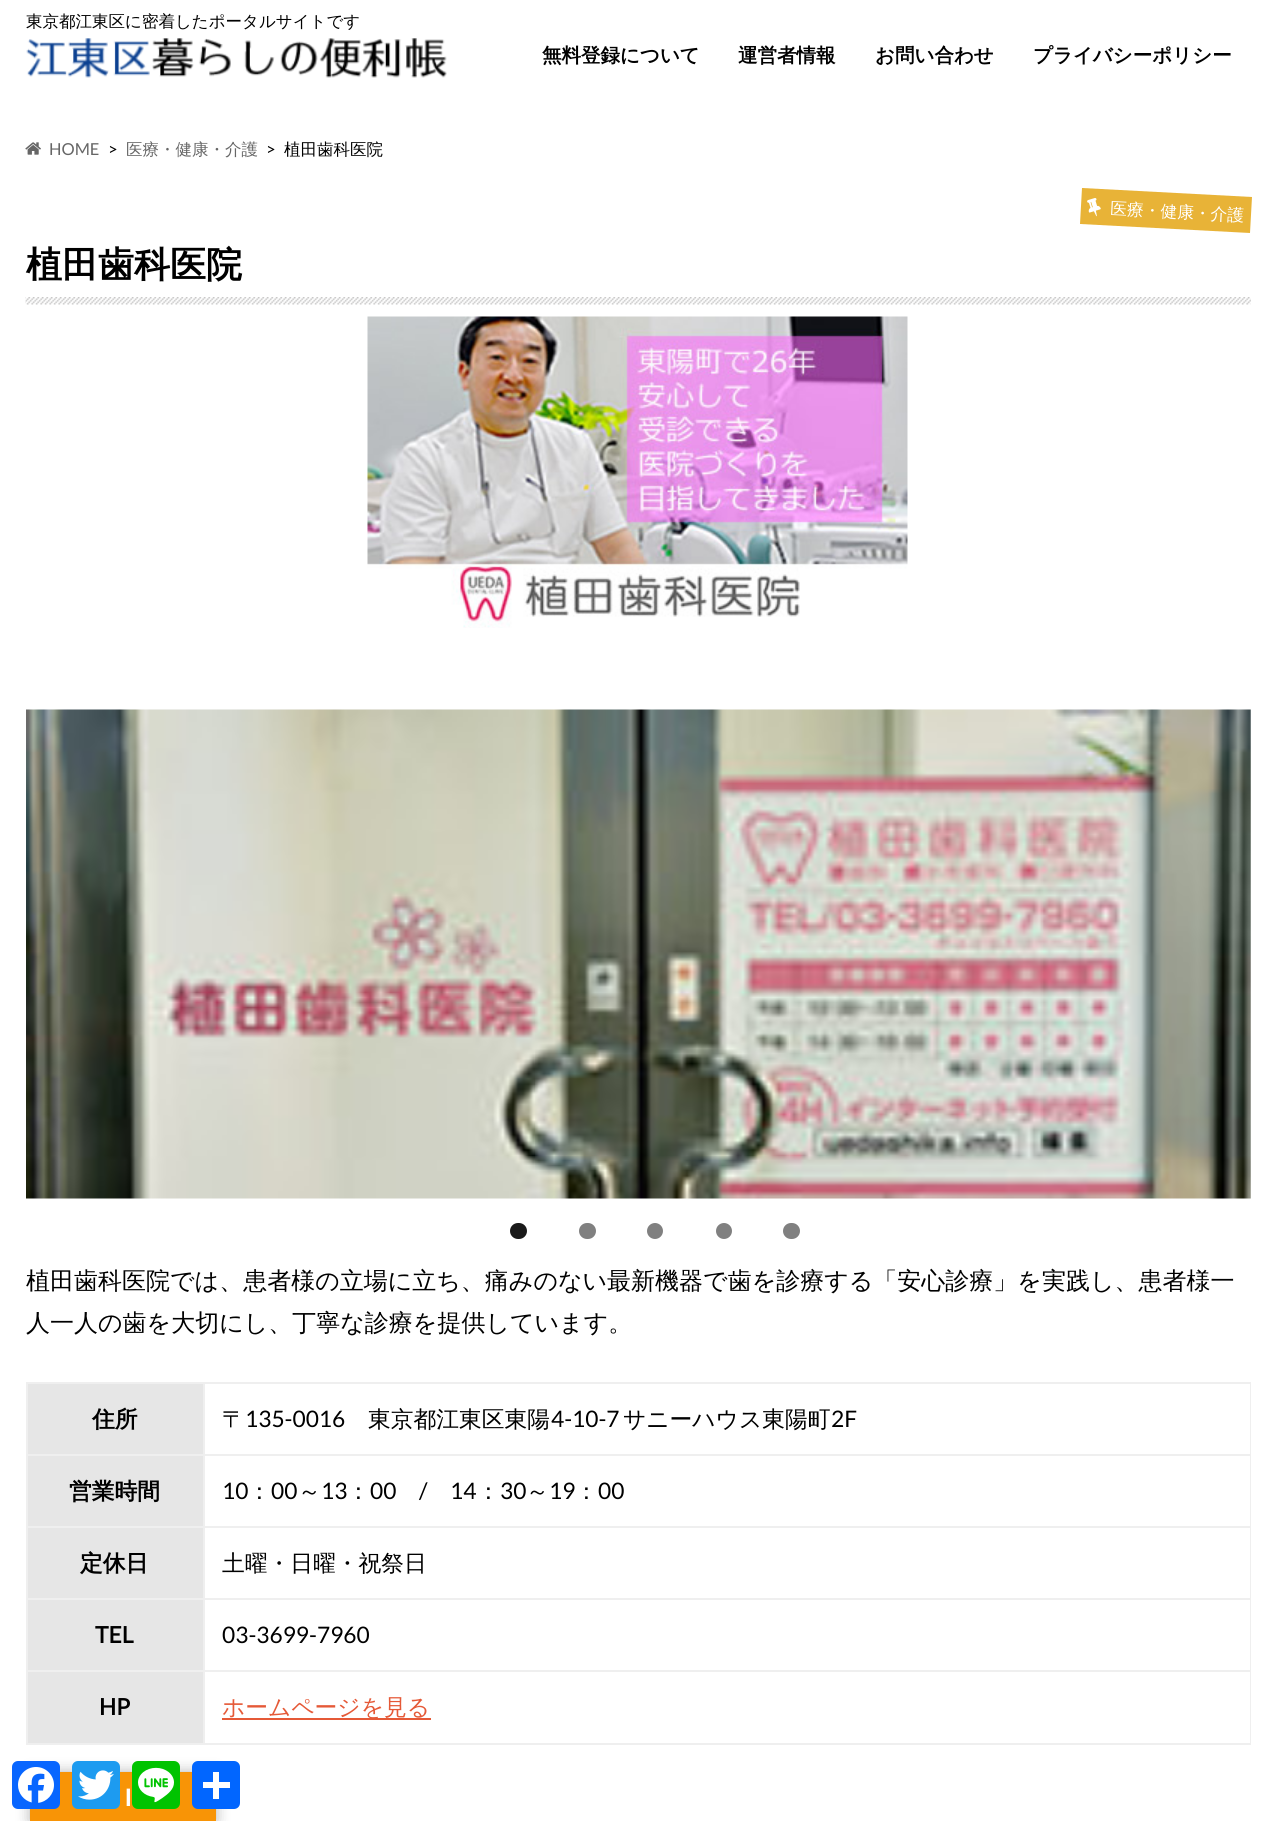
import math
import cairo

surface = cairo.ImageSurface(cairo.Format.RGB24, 1276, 1821)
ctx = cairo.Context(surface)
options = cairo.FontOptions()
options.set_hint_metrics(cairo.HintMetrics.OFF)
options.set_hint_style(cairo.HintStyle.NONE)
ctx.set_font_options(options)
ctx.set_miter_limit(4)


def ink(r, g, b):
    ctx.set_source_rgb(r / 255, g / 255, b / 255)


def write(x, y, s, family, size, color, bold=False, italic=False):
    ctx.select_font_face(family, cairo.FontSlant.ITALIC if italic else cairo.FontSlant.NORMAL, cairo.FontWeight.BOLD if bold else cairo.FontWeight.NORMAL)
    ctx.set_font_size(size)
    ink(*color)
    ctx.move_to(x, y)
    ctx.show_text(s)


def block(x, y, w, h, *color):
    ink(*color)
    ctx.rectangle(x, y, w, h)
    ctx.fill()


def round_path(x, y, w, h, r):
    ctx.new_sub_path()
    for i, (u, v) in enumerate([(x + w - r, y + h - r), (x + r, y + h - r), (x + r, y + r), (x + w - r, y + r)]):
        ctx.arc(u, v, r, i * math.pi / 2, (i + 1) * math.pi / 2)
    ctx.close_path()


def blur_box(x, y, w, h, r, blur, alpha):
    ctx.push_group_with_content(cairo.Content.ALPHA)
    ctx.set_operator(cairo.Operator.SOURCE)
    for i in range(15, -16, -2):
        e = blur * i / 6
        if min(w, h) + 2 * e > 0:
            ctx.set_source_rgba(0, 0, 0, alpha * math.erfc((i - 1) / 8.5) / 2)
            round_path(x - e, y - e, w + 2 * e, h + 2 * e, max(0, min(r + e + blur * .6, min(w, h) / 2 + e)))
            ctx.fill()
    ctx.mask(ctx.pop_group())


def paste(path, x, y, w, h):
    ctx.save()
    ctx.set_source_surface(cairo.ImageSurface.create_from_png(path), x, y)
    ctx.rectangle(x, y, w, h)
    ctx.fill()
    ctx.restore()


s1 = dict(family="WenQuanYi Zen Hei Medium", size=16.5, color=(0, 0, 0))
s2 = dict(family="WenQuanYi Zen Hei", size=19.5, color=(0, 0, 0), bold=True)
s3 = dict(family="Lato", size=16.5, color=(102, 102, 102))
s4 = dict(family="Lato", size=16.5, color=(0, 0, 0))
s5 = dict(family="WenQuanYi Zen Hei Medium", size=16.5, color=(102, 102, 102))
s6 = dict(family="WenQuanYi Zen Hei Medium", size=16.75, color=(255, 255, 255))
s7 = dict(family="WenQuanYi Zen Hei", size=36, color=(0, 0, 0), bold=True)
s8 = dict(family="WenQuanYi Zen Hei Medium", size=24, color=(0, 0, 0))
s9 = dict(family="WenQuanYi Zen Hei", size=22.75, color=(0, 0, 0), bold=True)
s10 = dict(family="WenQuanYi Zen Hei Medium", size=22.75, color=(0, 0, 0))
s11 = dict(family="Lato", size=22.75, color=(0, 0, 0))
s12 = dict(family="Lato", size=22.75, color=(0, 0, 0), bold=True)
s13 = dict(family="WenQuanYi Zen Hei Medium", size=22.75, color=(229, 89, 55))
s14 = dict(family="Liberation Sans", size=24, color=(255, 255, 255), bold=True)

ink(255, 255, 255)
ctx.paint()
write(26, 27, "東京都江東区に密着したポータルサイトです", **s1)
paste("pic1.png", 26, 38, 421, 40)
write(542, 62, "無料登録について", **s2)
write(738, 62, "運営者情報", **s2)
write(875, 62, "お問い合わせ", **s2)
write(1033, 62, "プライバシーポリシー", **s2)
paste("pic2.png", 25, 142, 16, 13)
write(49, 155, "HOME", **s3)
write(108, 155, ">", **s4)
write(126, 155, "医療・健康・介護", **s5)
write(266, 155, ">", **s4)
write(284, 155, "植田歯科医院", **s1)
ink(232, 179, 55)
ctx.new_path()
ctx.move_to(1082, 188)
ctx.line_to(1252, 197)
ctx.line_to(1250, 233)
ctx.line_to(1080, 224)
ctx.close_path()
ctx.fill()
paste("pic3.png", 1087, 198, 14, 19)
ctx.save()
ctx.translate(1110, 214)
ctx.rotate(3 * math.pi / 180)
write(0, 0, "医療・健康・介護", **s6)
ctx.restore()
paste("pic4.png", 25, 297, 1226, 8)
write(26, 277, "植田歯科医院", **s7)
paste("pic5.png", 367, 316, 541, 312)
paste("pic6.png", 26, 709, 1225, 490)
ink(26, 26, 26)
round_path(510, 1223, 17, 16, 8)
ctx.fill()
ink(128, 128, 128)
round_path(579, 1223, 17, 16, 8)
ctx.fill()
ctx.arc(655, 1231, 8, 0, 2 * math.pi)
ctx.fill()
ctx.arc(724, 1231, 8, 0, 2 * math.pi)
ctx.fill()
round_path(783, 1223, 17, 16, 8)
ctx.fill()
write(26, 1289, "植田歯科医院では、患者様の立場に立ち、痛みのない最新機器で歯を診療する「安心診療」を実践し、患者様一", **s8)
write(26, 1331, "人一人の歯を大切にし、丁寧な診療を提供しています。", **s8)
block(26, 1382, 1225, 2, 239, 239, 239)
block(1250, 1382, 1, 363, 239, 239, 239)
block(26, 1743, 1225, 2, 239, 239, 239)
block(26, 1382, 2, 363, 239, 239, 239)
block(26, 1454, 1225, 2, 239, 239, 239)
block(28, 1384, 175, 70, 230, 230, 230)
write(92, 1427, "住所", **s9)
write(222, 1427, "〒", **s10)
write(245, 1427, "135-0016", **s11)
write(368, 1427, "東京都江東区東陽", **s10)
write(551, 1427, "4-10-7", **s11)
write(623, 1427, "サニーハウス東陽町", **s10)
write(831, 1427, "2F", **s11)
block(28, 1456, 175, 70, 230, 230, 230)
write(69, 1499, "営業時間", **s9)
write(222, 1499, "10", **s11)
write(248, 1499, "：", **s10)
write(271, 1499, "00", **s11)
write(298, 1499, "～", **s10)
write(321, 1499, "13", **s11)
write(347, 1499, "：", **s10)
write(370, 1499, "00", **s11)
write(419, 1499, "/", **s11)
write(450, 1499, "14", **s11)
write(477, 1499, "：", **s10)
write(500, 1499, "30", **s11)
write(526, 1499, "～", **s10)
write(549, 1499, "19", **s11)
write(575, 1499, "：", **s10)
write(598, 1499, "00", **s11)
block(26, 1526, 1225, 2, 239, 239, 239)
block(26, 1598, 1225, 2, 239, 239, 239)
block(28, 1528, 175, 70, 230, 230, 230)
write(80, 1571, "定休日", **s9)
write(222, 1571, "土曜・日曜・祝祭日", **s10)
block(26, 1670, 1225, 2, 239, 239, 239)
block(28, 1600, 175, 70, 230, 230, 230)
write(95, 1643, "TEL", **s12)
write(222, 1643, "03-3699-7960", **s11)
block(28, 1672, 175, 71, 230, 230, 230)
block(203, 1382, 2, 363, 239, 239, 239)
write(99, 1715, "HP", **s12)
block(222, 1718, 209, 2, 229, 89, 55)
write(222, 1715, "ホームページを見る", **s13)
ink(0, 0, 0)
blur_box(30, 1772, 186, 49, 0, 7, 0.3)
block(30, 1772, 186, 49, 248, 148, 6)
ink(8, 102, 255)
round_path(12, 1761, 48, 48, 6)
ctx.fill()
paste("pic7.png", 18, 1767, 36, 36)
ink(29, 155, 240)
round_path(72, 1761, 48, 48, 6)
ctx.fill()
paste("pic8.png", 78, 1770, 36, 30)
ink(0, 195, 0)
round_path(132, 1761, 48, 48, 6)
ctx.fill()
paste("pic9.png", 138, 1767, 36, 36)
ink(1, 102, 255)
round_path(192, 1761, 48, 48, 6)
ctx.fill()
block(213, 1772, 6, 27, 255, 255, 255)
block(203, 1782, 27, 6, 255, 255, 255)
write(125, 1806, "l", **s14)
surface.write_to_png("screenshot.png")
